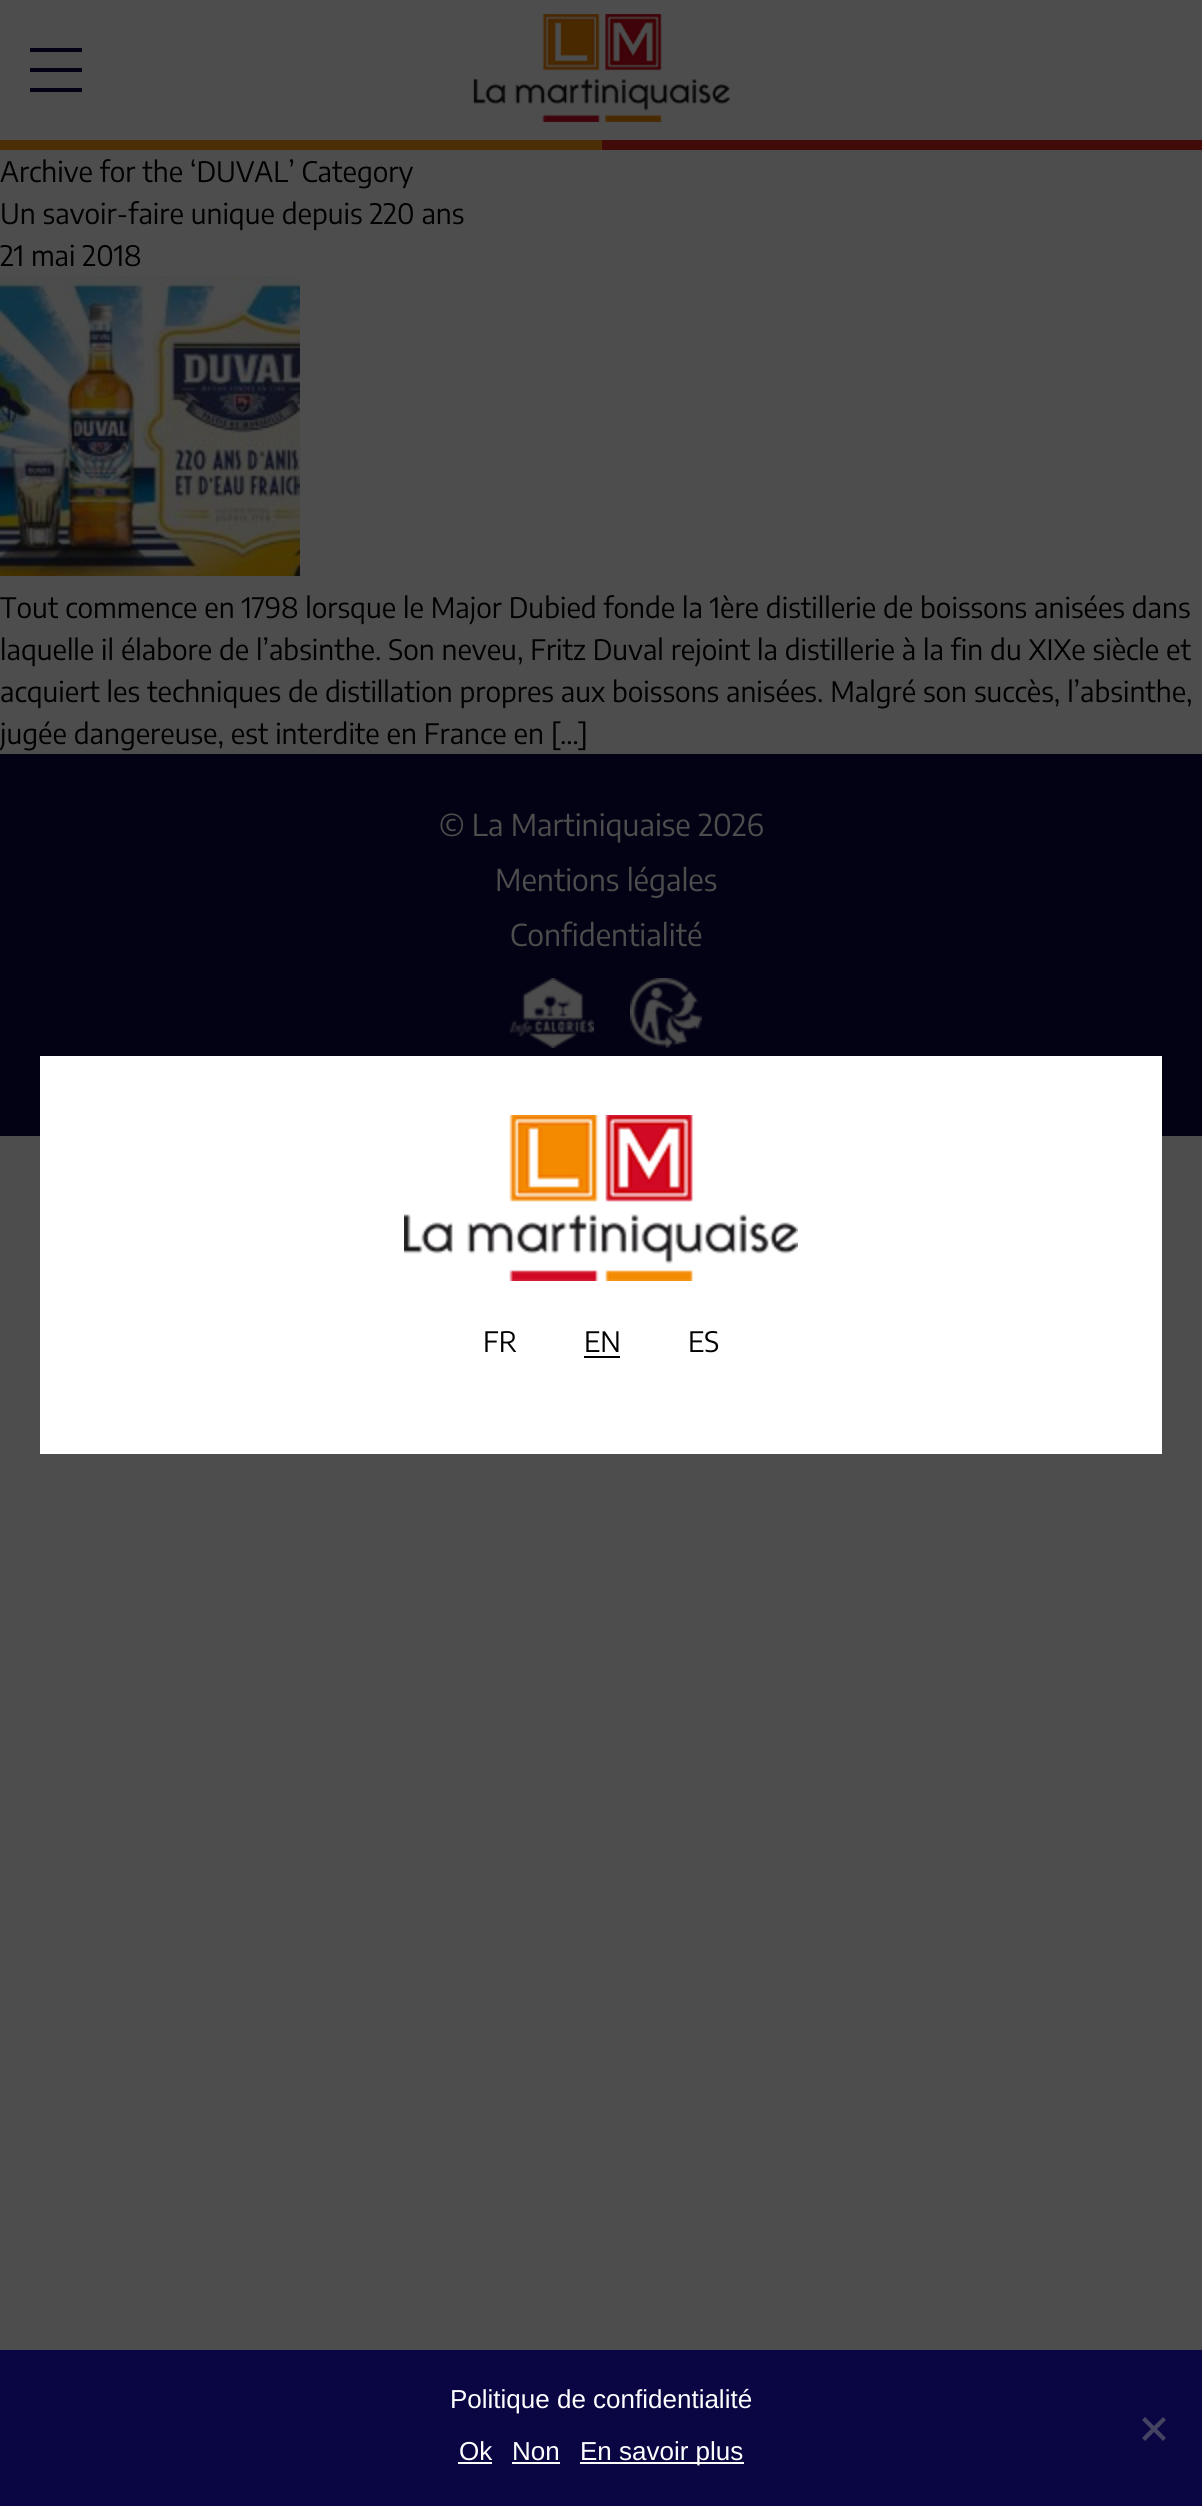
import math
import cairo

surface = cairo.ImageSurface(cairo.Format.RGB24, 1202, 2506)
ctx = cairo.Context(surface)
options = cairo.FontOptions()
options.set_hint_metrics(cairo.HintMetrics.OFF)
options.set_hint_style(cairo.HintStyle.NONE)
ctx.set_font_options(options)
ctx.set_miter_limit(4)


def ink(r, g, b):
    ctx.set_source_rgb(r / 255, g / 255, b / 255)


def write(x, y, s, family, size, color, bold=False, italic=False):
    ctx.select_font_face(family, cairo.FontSlant.ITALIC if italic else cairo.FontSlant.NORMAL, cairo.FontWeight.BOLD if bold else cairo.FontWeight.NORMAL)
    ctx.set_font_size(size)
    ink(*color)
    ctx.move_to(x, y)
    ctx.show_text(s)


def block(x, y, w, h, *color):
    ink(*color)
    ctx.rectangle(x, y, w, h)
    ctx.fill()


def paste(path, x, y, w, h):
    ctx.save()
    ctx.set_source_surface(cairo.ImageSurface.create_from_png(path), x, y)
    ctx.rectangle(x, y, w, h)
    ctx.fill()
    ctx.restore()


s1 = dict(family="Encode Sans Condensed Thin", size=28, color=(0, 0, 0))
s2 = dict(family="Encode Sans Condensed Thin", size=30, color=(77, 77, 77))
s3 = dict(family="Liberation Sans", size=26, color=(255, 255, 255))

ink(77, 77, 77)
ctx.paint()
block(602, 140, 600, 10, 65, 11, 10)
block(30, 48, 52, 4, 3, 2, 20)
block(30, 88, 52, 4, 3, 2, 20)
block(30, 68, 52, 4, 3, 2, 20)
paste("pic1.png", 473, 14, 257, 108)
block(0, 140, 602, 10, 77, 47, 7)
write(0, 182, "Archive for the ‘DUVAL’ Category", **s1)
write(0, 224, "Un savoir-faire unique depuis 220 ans", **s1)
write(0, 266, "21 mai 2018", **s1)
paste("pic2.png", 0, 276, 300, 300)
write(0, 618, "Tout commence en 1798 lorsque le Major Dubied fonde la 1ère distillerie de boissons anisées dans", **s1)
write(0, 660, "laquelle il élabore de l’absinthe. Son neveu, Fritz Duval rejoint la distillerie à la fin du XIXe siècle et", **s1)
write(0, 702, "acquiert les techniques de distillation propres aux boissons anisées. Malgré son succès, l’absinthe,", **s1)
write(0, 744, "jugée dangereuse, est interdite en France en […]", **s1)
block(0, 754, 1202, 382, 3, 2, 20)
write(439, 836, "© La Martiniquaise 2026", **s2)
write(495, 891, "Mentions légales", **s2)
write(510, 946, "Confidentialité", **s2)
paste("pic3.png", 510, 978, 84, 70)
paste("pic4.png", 630, 978, 72, 70)
block(40, 1056, 1122, 398, 255, 255, 255)
paste("pic5.png", 404, 1115, 394, 166)
write(483, 1352, "FR", **s1)
write(584, 1352, "EN", **s1)
block(584, 1356, 36, 2, 0, 0, 0)
write(688, 1352, "ES", **s1)
block(0, 2350, 1202, 156, 9, 6, 67)
write(450, 2408, "Politique de confidentialité", **s3)
ink(69, 67, 98)
ctx.new_path()
ctx.move_to(1163, 2417)
ctx.line_to(1166, 2420)
ctx.line_to(1145, 2441)
ctx.line_to(1142, 2438)
ctx.close_path()
ctx.fill()
ctx.new_path()
ctx.move_to(1142, 2420)
ctx.line_to(1145, 2417)
ctx.line_to(1166, 2438)
ctx.line_to(1163, 2441)
ctx.close_path()
ctx.fill()
write(459, 2460, "Ok", **s3)
block(458, 2462, 34, 2, 255, 255, 255)
write(512, 2460, "Non", **s3)
block(512, 2462, 48, 2, 255, 255, 255)
block(580, 2462, 164, 2, 255, 255, 255)
write(580, 2460, "En savoir plus", **s3)
surface.write_to_png("screenshot.png")
